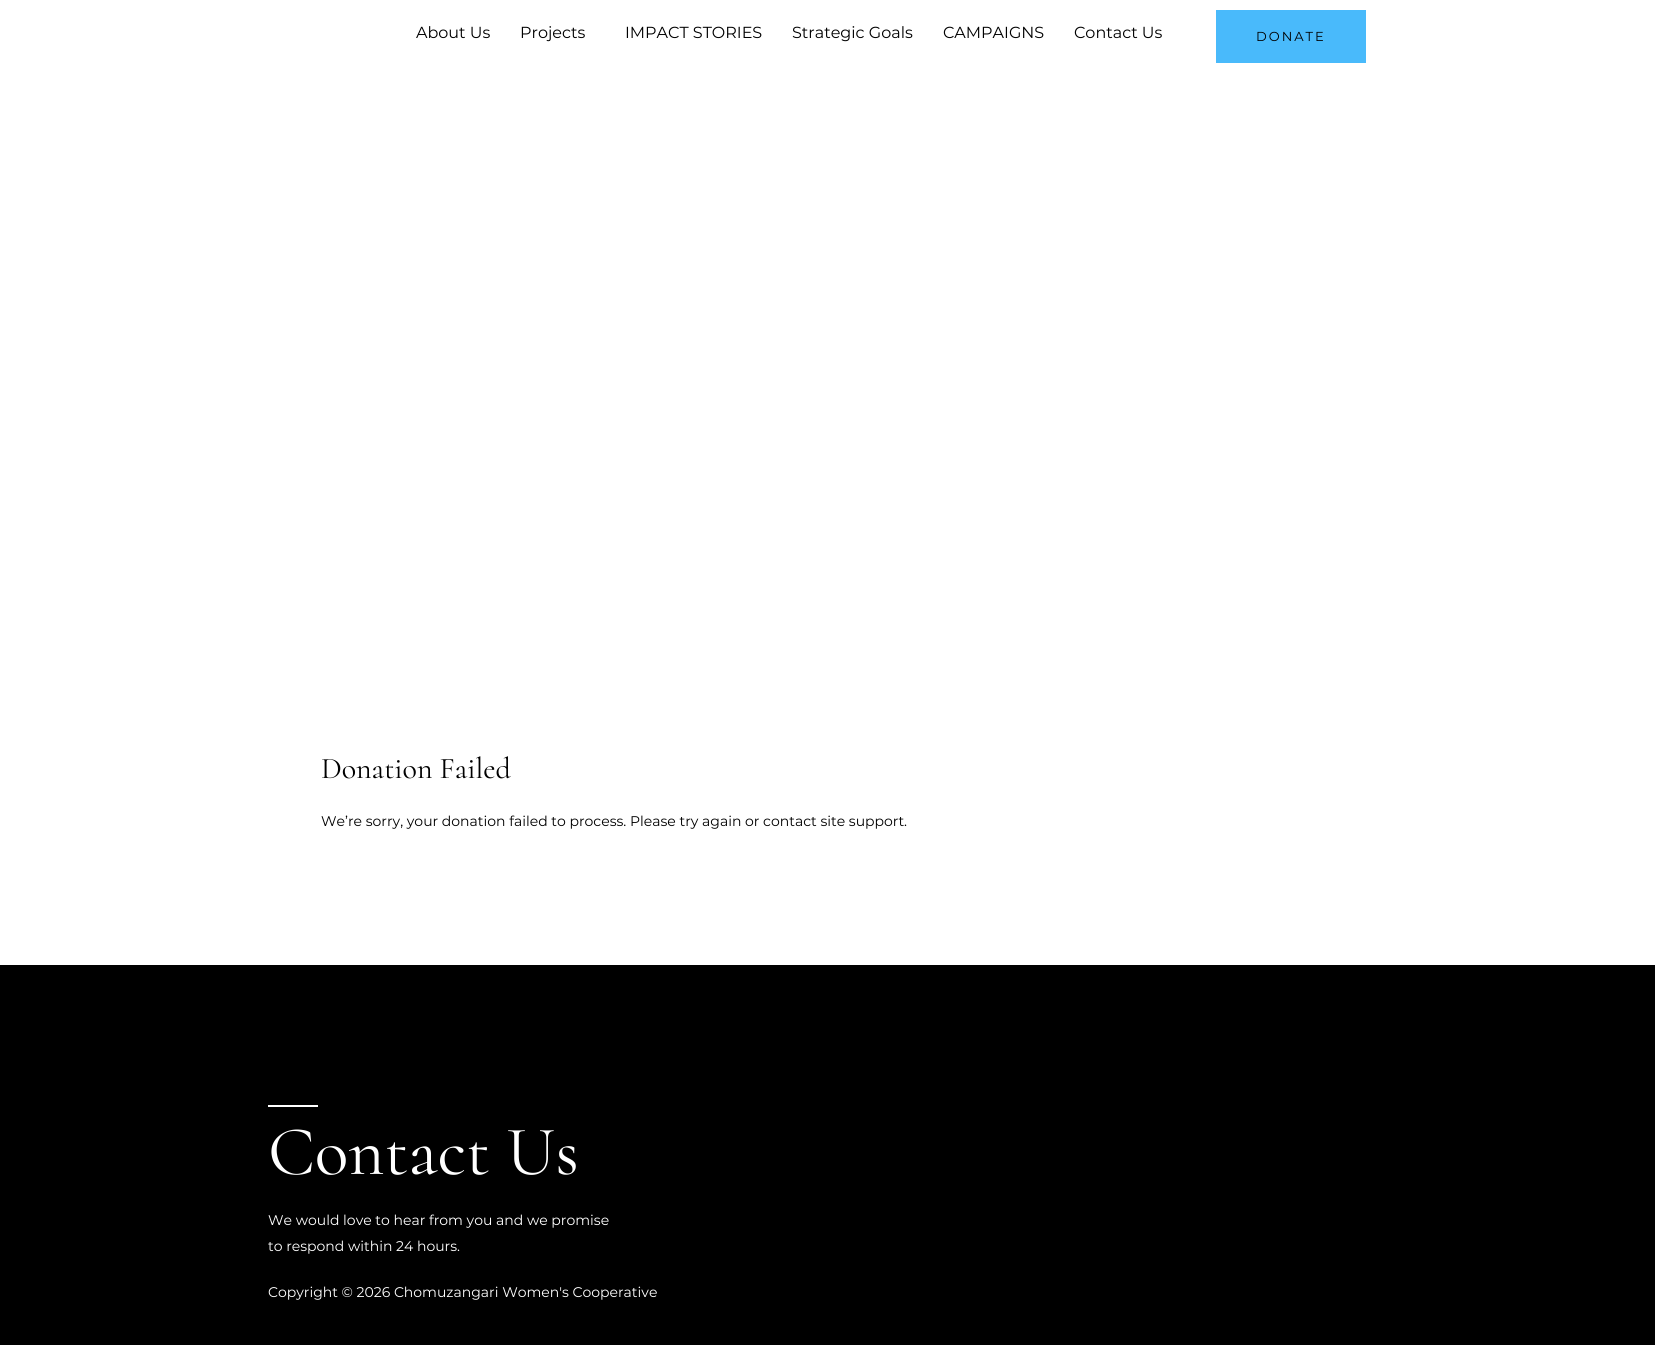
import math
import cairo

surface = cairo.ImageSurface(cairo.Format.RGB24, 1655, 1345)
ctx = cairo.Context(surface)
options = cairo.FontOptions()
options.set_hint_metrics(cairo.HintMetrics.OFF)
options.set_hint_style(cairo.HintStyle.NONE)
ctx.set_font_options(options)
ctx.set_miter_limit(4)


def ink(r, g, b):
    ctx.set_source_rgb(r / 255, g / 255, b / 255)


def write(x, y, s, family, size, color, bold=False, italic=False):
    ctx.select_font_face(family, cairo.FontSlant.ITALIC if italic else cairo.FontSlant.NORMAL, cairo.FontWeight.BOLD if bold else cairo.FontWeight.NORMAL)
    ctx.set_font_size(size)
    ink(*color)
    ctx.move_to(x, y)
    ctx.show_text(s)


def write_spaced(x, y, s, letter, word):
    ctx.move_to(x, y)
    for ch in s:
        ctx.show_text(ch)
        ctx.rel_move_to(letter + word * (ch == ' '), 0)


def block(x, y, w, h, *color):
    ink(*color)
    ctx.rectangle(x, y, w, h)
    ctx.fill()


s1 = dict(family="Montserrat Thin", size=16, color=(0, 0, 0))
s2 = dict(family="Cormorant Light", size=30, color=(0, 0, 0))
s3 = dict(family="Montserrat Thin", size=14, color=(0, 0, 0))
s4 = dict(family="Cormorant Light", size=70, color=(255, 255, 255))
s5 = dict(family="Montserrat Thin", size=14, color=(255, 255, 255))

ink(255, 255, 255)
ctx.paint()
write(416, 38, "About Us", **s1)
write(520, 38, "Projects", **s1)
write(625, 38, "IMPACT STORIES", **s1)
write(792, 38, "Strategic Goals", **s1)
write(943, 38, "CAMPAIGNS", **s1)
write(1074, 38, "Contact Us", **s1)
block(1216, 10, 150, 53, 73, 186, 251)
ctx.set_font_size(13)
ink(0, 0, 0)
write_spaced(1256, 41, "DONATE", 2, 0)
write(321, 778, "Donation Failed", **s2)
write(321, 826, "We’re sorry, your donation failed to process. Please try again or contact site support.", **s3)
block(0, 965, 1655, 380, 0, 0, 0)
block(268, 1105, 50, 2, 255, 255, 255)
write(268, 1174, "Contact Us", **s4)
write(268, 1225, "We would love to hear from you and we promise", **s5)
write(268, 1251, "to respond within 24 hours.", **s5)
write(268, 1297, "Copyright © 2026 Chomuzangari Women's Cooperative", **s5)
surface.write_to_png("screenshot.png")
